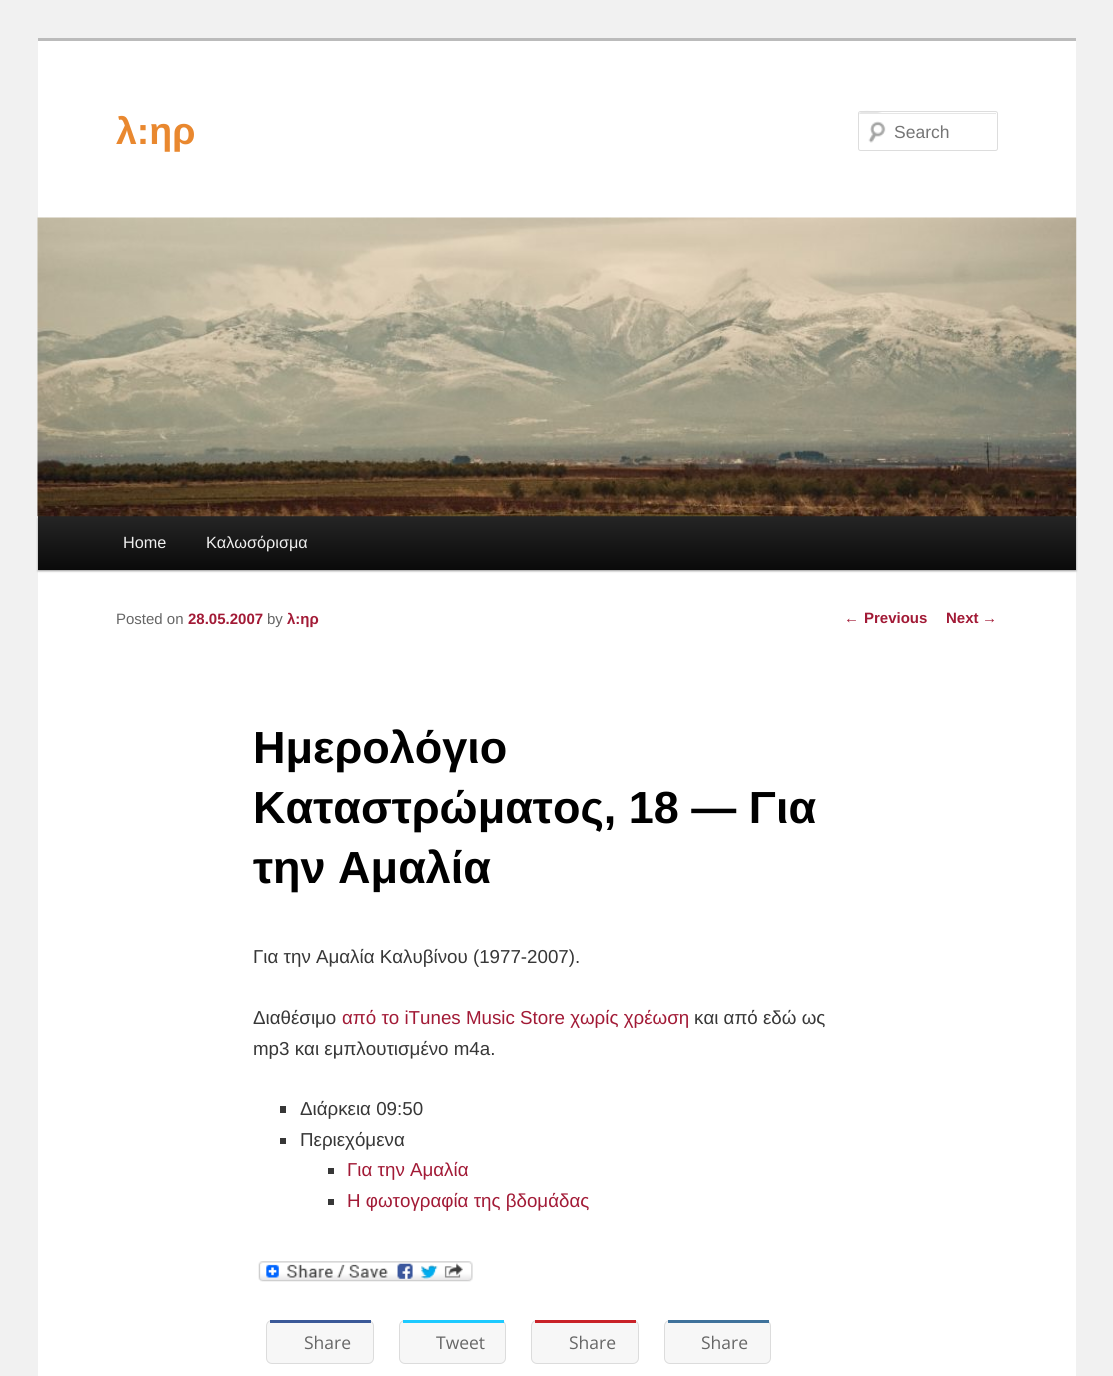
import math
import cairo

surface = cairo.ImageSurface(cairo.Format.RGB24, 1113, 1376)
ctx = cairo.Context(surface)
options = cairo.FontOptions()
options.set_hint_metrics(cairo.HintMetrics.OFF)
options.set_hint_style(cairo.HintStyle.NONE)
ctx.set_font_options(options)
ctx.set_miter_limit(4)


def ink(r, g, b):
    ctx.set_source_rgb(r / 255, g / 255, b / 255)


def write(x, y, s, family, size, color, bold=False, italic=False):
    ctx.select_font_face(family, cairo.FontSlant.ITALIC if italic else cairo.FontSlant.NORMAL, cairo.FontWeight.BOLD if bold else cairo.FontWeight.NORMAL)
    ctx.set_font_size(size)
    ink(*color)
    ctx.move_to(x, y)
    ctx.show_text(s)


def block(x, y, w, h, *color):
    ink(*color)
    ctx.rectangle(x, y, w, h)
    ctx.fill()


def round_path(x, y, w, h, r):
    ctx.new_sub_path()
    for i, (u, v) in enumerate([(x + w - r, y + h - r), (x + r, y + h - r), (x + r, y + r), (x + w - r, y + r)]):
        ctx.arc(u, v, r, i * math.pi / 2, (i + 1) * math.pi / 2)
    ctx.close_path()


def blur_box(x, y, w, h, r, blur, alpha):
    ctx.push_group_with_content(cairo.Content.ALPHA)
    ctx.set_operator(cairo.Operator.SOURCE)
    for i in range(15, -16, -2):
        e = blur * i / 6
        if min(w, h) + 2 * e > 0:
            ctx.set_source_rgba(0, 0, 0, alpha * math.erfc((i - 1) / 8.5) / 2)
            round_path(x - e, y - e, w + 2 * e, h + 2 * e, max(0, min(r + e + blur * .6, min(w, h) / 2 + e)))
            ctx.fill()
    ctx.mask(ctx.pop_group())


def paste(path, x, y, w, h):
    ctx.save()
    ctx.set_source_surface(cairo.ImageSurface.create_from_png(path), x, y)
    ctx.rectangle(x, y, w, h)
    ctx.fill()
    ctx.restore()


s1 = dict(family="Liberation Sans", size=37.5, color=(233, 136, 47), bold=True)
s2 = dict(family="Liberation Sans", size=17.5, color=(117, 117, 117))
s3 = dict(family="Liberation Sans", size=16.25, color=(238, 238, 238))
s4 = dict(family="Liberation Sans", size=15, color=(102, 102, 102))
s5 = dict(family="Liberation Sans", size=15, color=(162, 26, 54), bold=True)
s6 = dict(family="Liberation Sans", size=45, color=(0, 0, 0), bold=True)
s7 = dict(family="Liberation Sans", size=18.75, color=(55, 55, 55))
s8 = dict(family="Liberation Sans", size=18.75, color=(162, 26, 54))
s9 = dict(family="Open Sans", size=17.5, color=(102, 102, 102))
s10 = dict(family="Liberation Sans", size=15, color=(162, 26, 54))

ink(241, 241, 241)
ctx.paint()
block(38, 41, 1038, 1335, 255, 255, 255)
block(38, 38, 1038, 3, 187, 187, 187)
write(116, 144, "λ:ηρ", **s1)
paste("pic1.png", 868, 121, 18, 22)
ink(230, 230, 230)
ctx.new_path()
ctx.move_to(860, 114)
ctx.line_to(995, 114)
ctx.curve_to(996, 114, 996, 114, 996, 115)
ctx.line_to(996, 113)
ctx.line_to(882, 113)
ctx.curve_to(882, 113, 859, 107, 859, 115)
ctx.curve_to(859, 114, 859, 114, 860, 114)
ctx.close_path()
ctx.fill()
round_path(858.5, 111.5, 139, 39, 2)
ink(221, 221, 221)
ctx.set_line_width(1)
ctx.stroke()
write(894, 138, "Search", **s2)
ink(0, 0, 0)
blur_box(38, 518, 1038, 53, 0, 1, 0.4)
gradient = cairo.LinearGradient(557, 516, 557, 570)
gradient.add_color_stop_rgba(0, 0.145, 0.145, 0.145, 1)
gradient.add_color_stop_rgba(1, 0.039, 0.039, 0.039, 1)
ctx.set_source(gradient)
ctx.rectangle(38, 516, 1038, 54)
ctx.fill()
paste("pic2.png", 37, 217, 1040, 300)
write(123, 548, "Home", **s3)
write(206, 548, "Καλωσόρισμα", **s3)
write(116, 624, "Posted on", **s4)
write(188, 624, "28.05.2007", **s5)
write(267, 624, "by", **s4)
write(287, 624, "λ:ηρ", **s5)
write(253, 763, "Ημερολόγιο", **s6)
write(253, 823, "Καταστρώματος, 18 — Για", **s6)
write(253, 883, "την Αμαλία", **s6)
write(253, 963, "Για την Αμαλία Καλυβίνου (1977-2007).", **s7)
write(253, 1024, "Διαθέσιμο", **s7)
write(342, 1024, "από το iTunes Music Store χωρίς χρέωση", **s8)
write(694, 1024, "και από εδώ ως", **s7)
write(253, 1055, "mp3 και εμπλουτισμένο m4a.", **s7)
block(280, 1106, 6, 7, 55, 55, 55)
write(300, 1115, "Διάρκεια 09:50", **s7)
block(280, 1138, 6, 6, 55, 55, 55)
write(300, 1146, "Περιεχόμενα", **s7)
block(328, 1168, 6, 6, 55, 55, 55)
write(347, 1176, "Για την Αμαλία", **s8)
block(328, 1199, 6, 6, 55, 55, 55)
write(347, 1207, "Η φωτογραφία της βδομάδας", **s8)
paste("pic3.png", 258, 1261, 215, 21)
ink(247, 247, 247)
round_path(266.5, 1320.5, 107, 43, 5.5)
ctx.fill_preserve()
ink(220, 220, 220)
ctx.stroke()
block(270, 1320, 101, 3, 59, 89, 152)
write(304, 1349, "Share", **s9)
ink(247, 247, 247)
round_path(399.5, 1320.5, 106, 43, 5.5)
ctx.fill_preserve()
ink(220, 220, 220)
ctx.stroke()
block(403, 1320, 101, 3, 29, 202, 255)
write(436, 1349, "Tweet", **s9)
ink(247, 247, 247)
round_path(531.5, 1320.5, 107, 43, 5.5)
ctx.fill_preserve()
ink(220, 220, 220)
ctx.stroke()
block(535, 1320, 101, 3, 201, 34, 40)
write(569, 1349, "Share", **s9)
ink(247, 247, 247)
round_path(664.5, 1320.5, 106, 43, 5.5)
ctx.fill_preserve()
ink(220, 220, 220)
ctx.stroke()
block(668, 1320, 101, 3, 63, 114, 155)
write(701, 1349, "Share", **s9)
write(844, 623, "←", **s10)
write(864, 623, "Previous", **s5)
write(946, 623, "Next", **s5)
write(982, 623, "→", **s10)
surface.write_to_png("screenshot.png")
